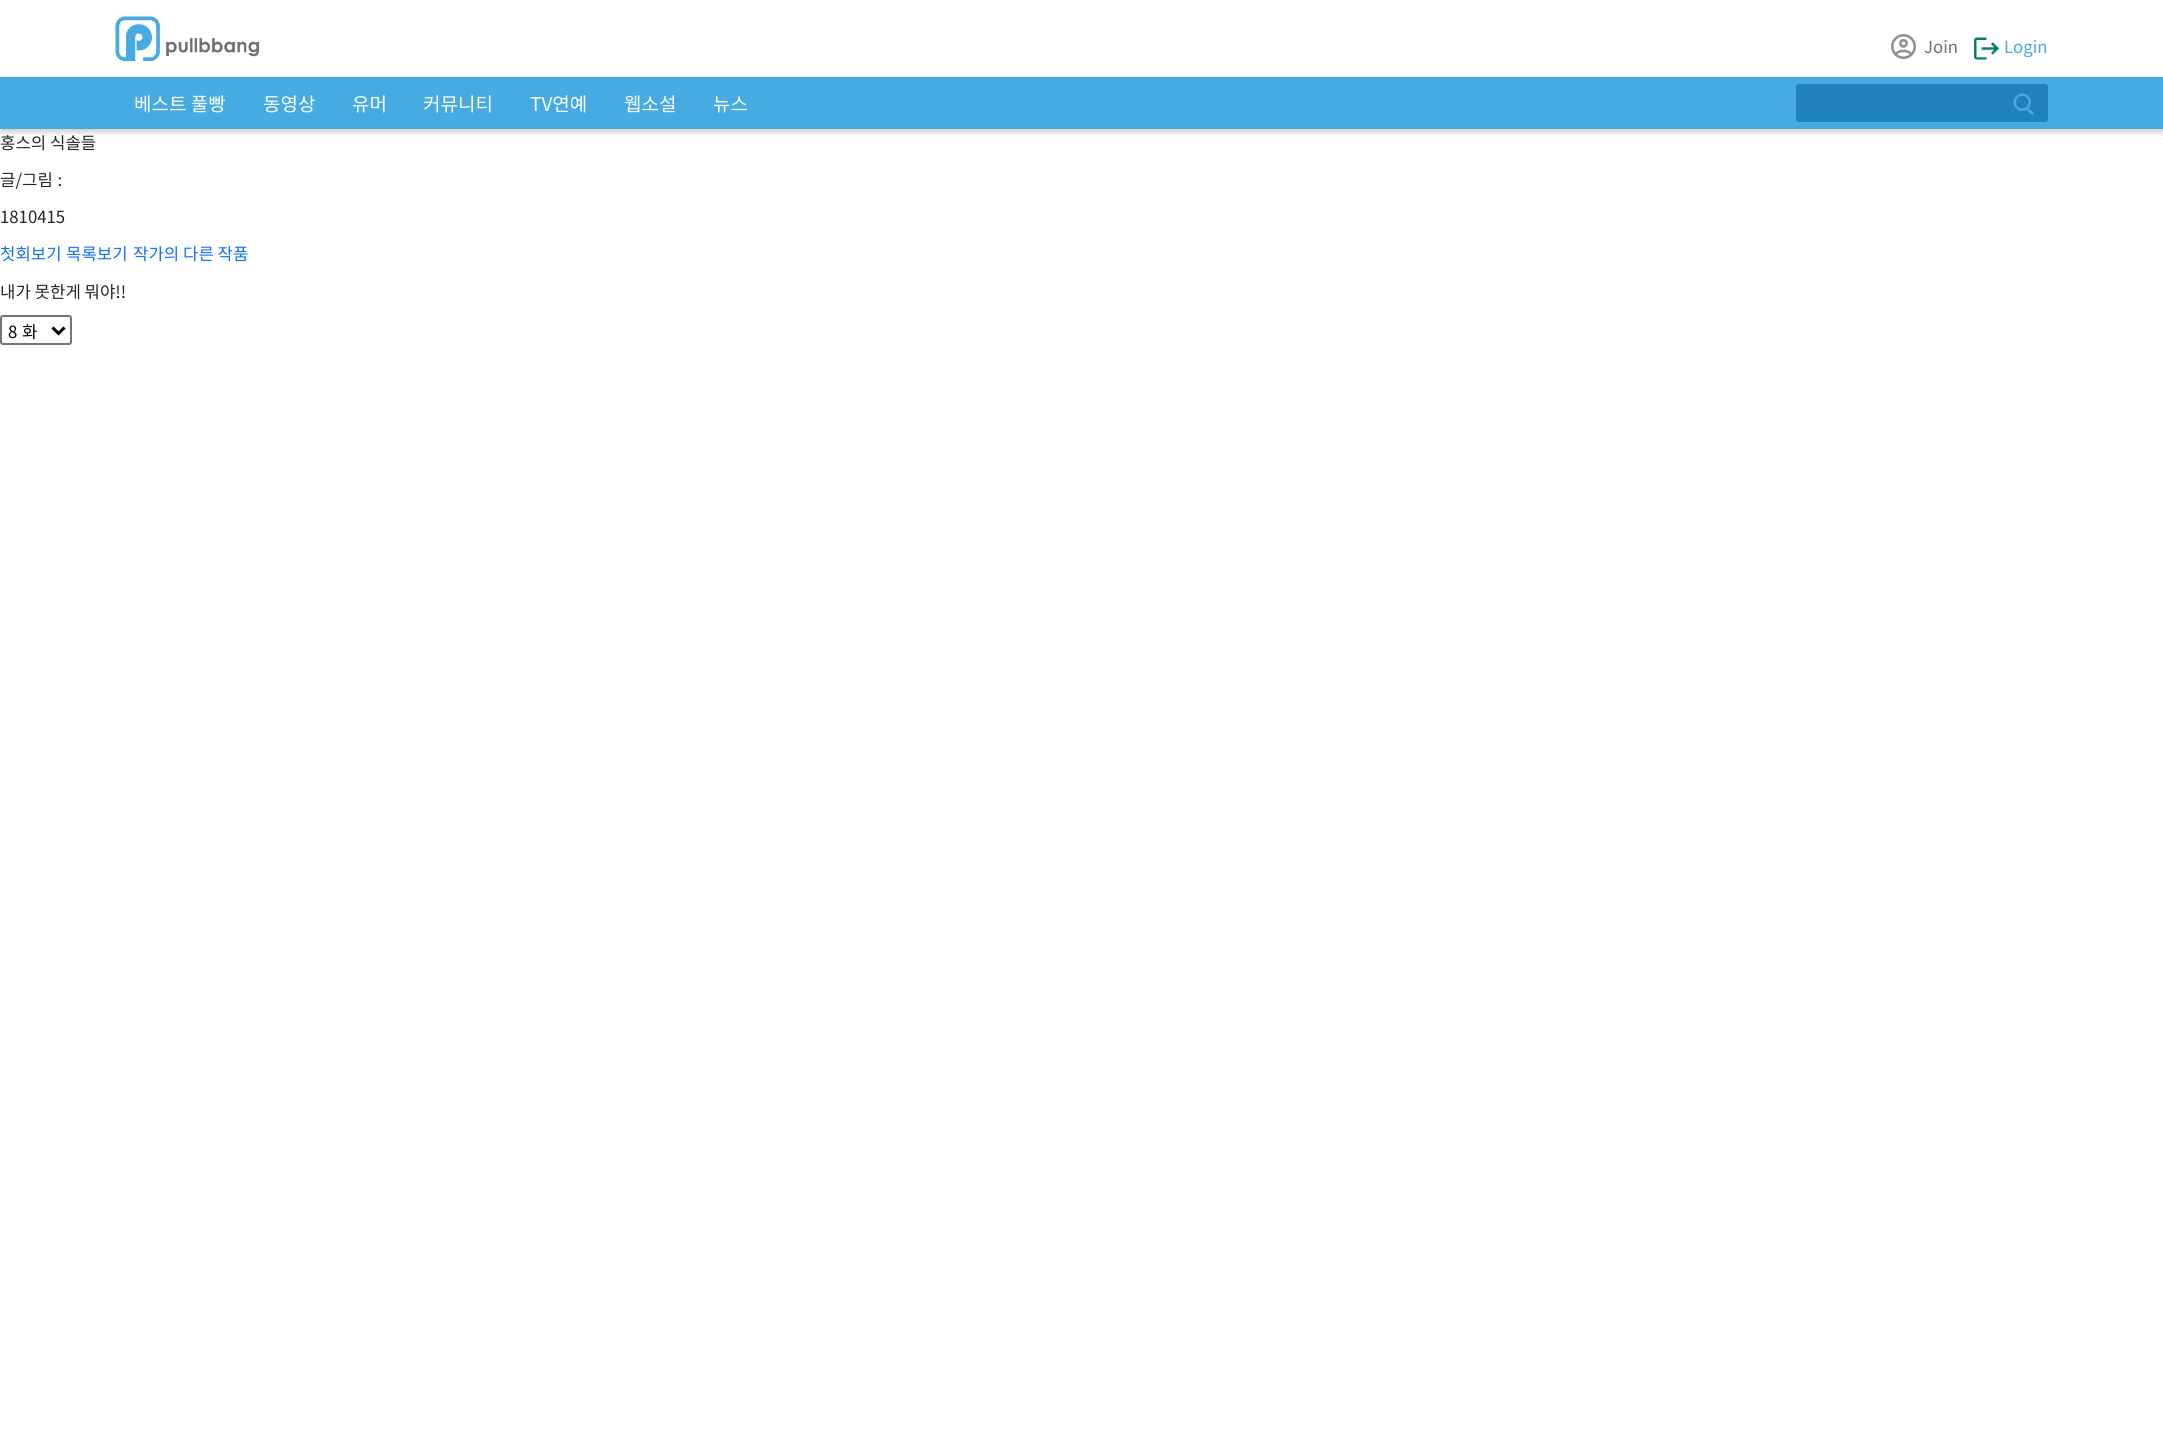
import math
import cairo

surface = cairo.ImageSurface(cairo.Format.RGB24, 2163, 1436)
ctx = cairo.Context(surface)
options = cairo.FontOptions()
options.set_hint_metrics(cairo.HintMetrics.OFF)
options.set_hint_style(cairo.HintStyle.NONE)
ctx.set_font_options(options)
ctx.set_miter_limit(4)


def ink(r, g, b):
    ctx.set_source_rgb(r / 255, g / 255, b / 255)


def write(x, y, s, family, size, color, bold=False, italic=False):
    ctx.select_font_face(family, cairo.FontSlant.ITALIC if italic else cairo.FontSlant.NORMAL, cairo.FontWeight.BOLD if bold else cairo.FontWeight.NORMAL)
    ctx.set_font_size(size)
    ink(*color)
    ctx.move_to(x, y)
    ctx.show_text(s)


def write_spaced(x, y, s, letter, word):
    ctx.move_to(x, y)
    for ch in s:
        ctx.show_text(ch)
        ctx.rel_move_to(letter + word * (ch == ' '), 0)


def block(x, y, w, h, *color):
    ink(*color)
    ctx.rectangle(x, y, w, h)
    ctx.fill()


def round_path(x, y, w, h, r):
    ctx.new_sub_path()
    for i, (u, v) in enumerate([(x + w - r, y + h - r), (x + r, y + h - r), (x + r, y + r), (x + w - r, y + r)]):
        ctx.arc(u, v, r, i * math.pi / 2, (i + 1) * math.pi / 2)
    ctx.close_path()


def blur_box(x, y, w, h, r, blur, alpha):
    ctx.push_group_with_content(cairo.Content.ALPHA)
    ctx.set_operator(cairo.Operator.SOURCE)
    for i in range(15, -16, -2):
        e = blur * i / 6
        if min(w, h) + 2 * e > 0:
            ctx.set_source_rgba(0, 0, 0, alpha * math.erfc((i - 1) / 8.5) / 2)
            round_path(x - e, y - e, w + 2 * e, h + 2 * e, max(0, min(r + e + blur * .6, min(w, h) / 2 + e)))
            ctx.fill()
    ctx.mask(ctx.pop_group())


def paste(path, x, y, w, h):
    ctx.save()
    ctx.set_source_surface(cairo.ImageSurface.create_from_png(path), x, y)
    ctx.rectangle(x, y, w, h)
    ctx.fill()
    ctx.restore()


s1 = dict(family="Noto Sans KR", size=16.75, color=(112, 112, 112))
s2 = dict(family="Noto Sans KR", size=16.75, color=(70, 170, 227))
s3 = dict(family="Noto Sans KR", size=19, color=(255, 255, 255))
s4 = dict(family="Noto Sans KR", size=16.75, color=(33, 37, 41))
s5 = dict(family="Noto Sans KR", size=16.75, color=(13, 110, 253))

ink(255, 255, 255)
ctx.paint()
ctx.save()
ctx.rectangle(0, 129, 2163, 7)
ctx.clip()
ink(0, 0, 0)
blur_box(0, 3, 2163, 129, 0, 3, 0.22)
ctx.restore()
paste("pic1.png", 115, 16, 144, 46)
paste("pic2.png", 1891, 34, 25, 25)
write(1924, 53, "Join", **s1)
paste("pic3.png", 1974, 37, 26, 23)
write(2004, 53, "Login", **s2)
block(0, 77, 2163, 52, 70, 170, 227)
write(134, 111, "베스트 풀빵", **s3)
write(263, 111, "동영상", **s3)
write(352, 111, "유머", **s3)
write(423, 111, "커뮤니티", **s3)
write(530, 111, "TV연예", **s3)
write(624, 111, "웹소설", **s3)
write(713, 111, "뉴스", **s3)
ink(32, 130, 185)
ctx.new_path()
ctx.move_to(2000, 84)
ctx.line_to(2045, 84)
ctx.curve_to(2046.5, 84, 2048, 85.5, 2048, 87)
ctx.line_to(2048, 119)
ctx.curve_to(2048, 120.5, 2046.5, 122, 2045, 122)
ctx.line_to(2000, 122)
ctx.close_path()
ctx.fill()
ctx.new_path()
ctx.move_to(1799, 84)
ctx.line_to(2001, 84)
ctx.line_to(2001, 122)
ctx.line_to(1799, 122)
ctx.curve_to(1797.5, 122, 1796, 120.5, 1796, 119)
ctx.line_to(1796, 87)
ctx.curve_to(1796, 85.5, 1797.5, 84, 1799, 84)
ctx.close_path()
ctx.fill()
paste("pic4.png", 2013, 93, 21, 22)
write(0, 149, "홍스의 식솔들", **s4)
write_spaced(0, 186, "글/그림 :", 0, 1)
write(0, 223, "1810415", **s4)
write(0, 260, "첫회보기", **s5)
write(66, 260, "목록보기", **s5)
write(133, 260, "작가의 다른 작품", **s5)
write(0, 298, "내가 못한게 뭐야!!", **s4)
round_path(1, 316, 70, 28, 2)
ink(118, 118, 118)
ctx.stroke()
ctx.new_path()
ctx.move_to(52.5, 327.5)
ctx.line_to(58.5, 333.5)
ctx.line_to(64.5, 327.5)
ink(0, 0, 0)
ctx.set_line_width(3)
ctx.stroke()
write_spaced(8, 338, "8 화", 0, 1)
surface.write_to_png("screenshot.png")
